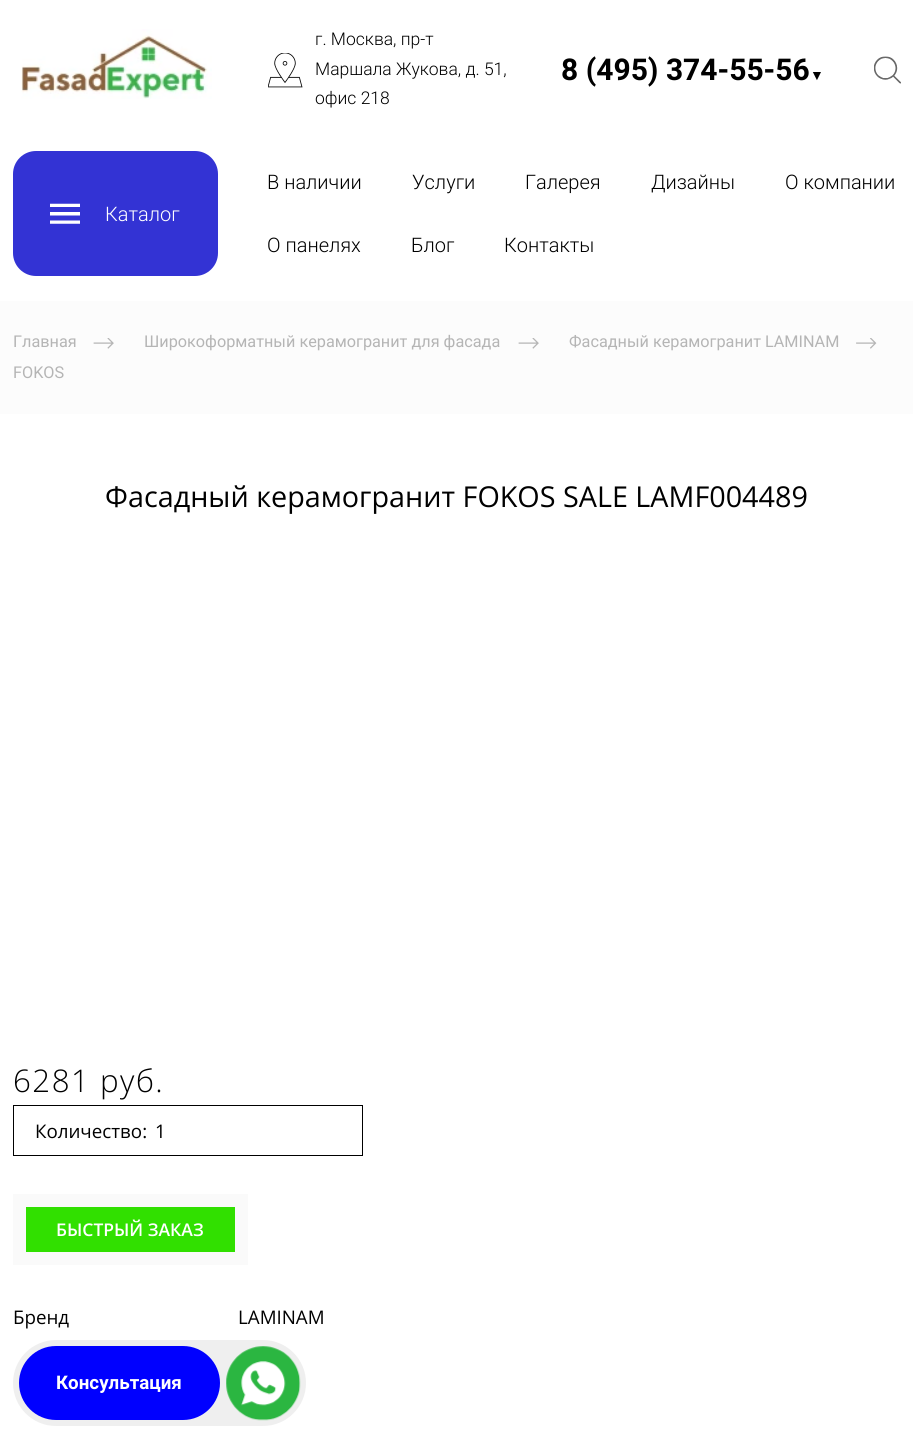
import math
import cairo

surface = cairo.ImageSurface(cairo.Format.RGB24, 913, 1438)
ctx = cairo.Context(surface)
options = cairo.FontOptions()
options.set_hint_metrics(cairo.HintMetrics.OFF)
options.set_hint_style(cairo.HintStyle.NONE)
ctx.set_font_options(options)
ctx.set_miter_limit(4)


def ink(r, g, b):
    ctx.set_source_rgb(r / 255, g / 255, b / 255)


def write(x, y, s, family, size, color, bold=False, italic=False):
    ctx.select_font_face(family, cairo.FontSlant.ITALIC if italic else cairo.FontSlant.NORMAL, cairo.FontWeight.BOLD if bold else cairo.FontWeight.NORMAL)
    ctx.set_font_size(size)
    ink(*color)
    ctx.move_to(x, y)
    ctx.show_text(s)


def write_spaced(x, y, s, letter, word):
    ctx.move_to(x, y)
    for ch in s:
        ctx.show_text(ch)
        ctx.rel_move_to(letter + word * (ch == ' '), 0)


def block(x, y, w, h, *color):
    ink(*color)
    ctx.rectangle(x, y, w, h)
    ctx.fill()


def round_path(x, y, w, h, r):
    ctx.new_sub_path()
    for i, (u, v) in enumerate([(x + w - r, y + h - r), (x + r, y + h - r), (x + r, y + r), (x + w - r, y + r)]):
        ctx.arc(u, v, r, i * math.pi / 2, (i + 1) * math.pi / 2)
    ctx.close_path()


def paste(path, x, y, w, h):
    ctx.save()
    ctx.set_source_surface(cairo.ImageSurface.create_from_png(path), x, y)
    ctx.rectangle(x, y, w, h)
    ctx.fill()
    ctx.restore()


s1 = dict(family="Roboto Light", size=17.5, color=(0, 0, 0))
s2 = dict(family="Roboto", size=30, color=(0, 0, 0), bold=True)
s3 = dict(family="Liberation Sans", size=14, color=(0, 0, 0), bold=True)
s4 = dict(family="Roboto Light", size=20, color=(255, 255, 255))
s5 = dict(family="Roboto Light", size=20, color=(0, 0, 0))
s6 = dict(family="Roboto", size=18.75, color=(255, 255, 255), bold=True)
s7 = dict(family="Roboto", size=16.25, color=(181, 181, 181))
s8 = dict(family="Open Sans", size=28.75, color=(0, 0, 0))
s9 = dict(family="Open Sans", size=18.75, color=(0, 0, 0))
s10 = dict(family="Open Sans SemiBold", size=17.5, color=(255, 255, 255))

ink(255, 255, 255)
ctx.paint()
paste("pic1.png", 21, 29, 191, 70)
paste("pic2.png", 268, 53, 35, 35)
write(315, 45, "г. Москва, пр-т", **s1)
write(315, 75, "Маршала Жукова, д. 51,", **s1)
write(315, 104, "офис 218", **s1)
write(561, 80, "8 (495) 374-55-56", **s2)
write(810, 80, "▼", **s3)
paste("pic3.png", 874, 56, 27, 28)
ink(51, 51, 212)
round_path(13, 151, 205, 125, 23)
ctx.fill()
paste("pic4.png", 50, 203, 30, 21)
write(105, 221, "Каталог", **s4)
write(267, 189, "В наличии", **s5)
write(412, 189, "Услуги", **s5)
write(525, 189, "Галерея", **s5)
write(651, 189, "Дизайны", **s5)
write(785, 189, "О компании", **s5)
write(267, 252, "О панелях", **s5)
write(411, 252, "Блог", **s5)
write(504, 252, "Контакты", **s5)
ctx.set_source_rgba(0.922, 0.922, 0.922, 0.8)
round_path(13, 1340, 293, 86, 43)
ctx.fill()
ink(0, 0, 255)
round_path(19, 1346, 201, 74, 37)
ctx.fill()
write(56, 1389, "Консультация", **s6)
paste("pic5.png", 226, 1346, 75, 75)
block(0, 301, 913, 113, 252, 252, 252)
write(13, 347, "Главная", **s7)
paste("pic6.png", 93, 338, 21, 11)
write(144, 347, "Широкоформатный керамогранит для фасада", **s7)
paste("pic6.png", 518, 338, 21, 11)
write(569, 347, "Фасадный керамогранит LAMINAM", **s7)
paste("pic7.png", 856, 338, 21, 11)
write(13, 378, "FOKOS", **s7)
write(105, 507, "Фасадный керамогранит FOKOS SALE LAMF004489", **s8)
ctx.select_font_face("Open Sans Light")
ctx.set_font_size(31.25)
write_spaced(13, 1092, "6281 руб.", 1.5, 0)
ctx.rectangle(13.5, 1105.5, 349, 50)
ctx.set_line_width(1)
ctx.stroke()
write(35, 1138, "Количество:", **s9)
write(155, 1138, "1", **s9)
ink(49, 224, 0)
ctx.rectangle(19.5, 1200.5, 222, 58)
ctx.fill_preserve()
ink(250, 250, 250)
ctx.set_line_width(13)
ctx.stroke()
write(56, 1236, "БЫСТРЫЙ ЗАКАЗ", **s10)
write(13, 1324, "Бренд", **s9)
write(238, 1324, "LAMINAM", **s9)
surface.write_to_png("screenshot.png")
